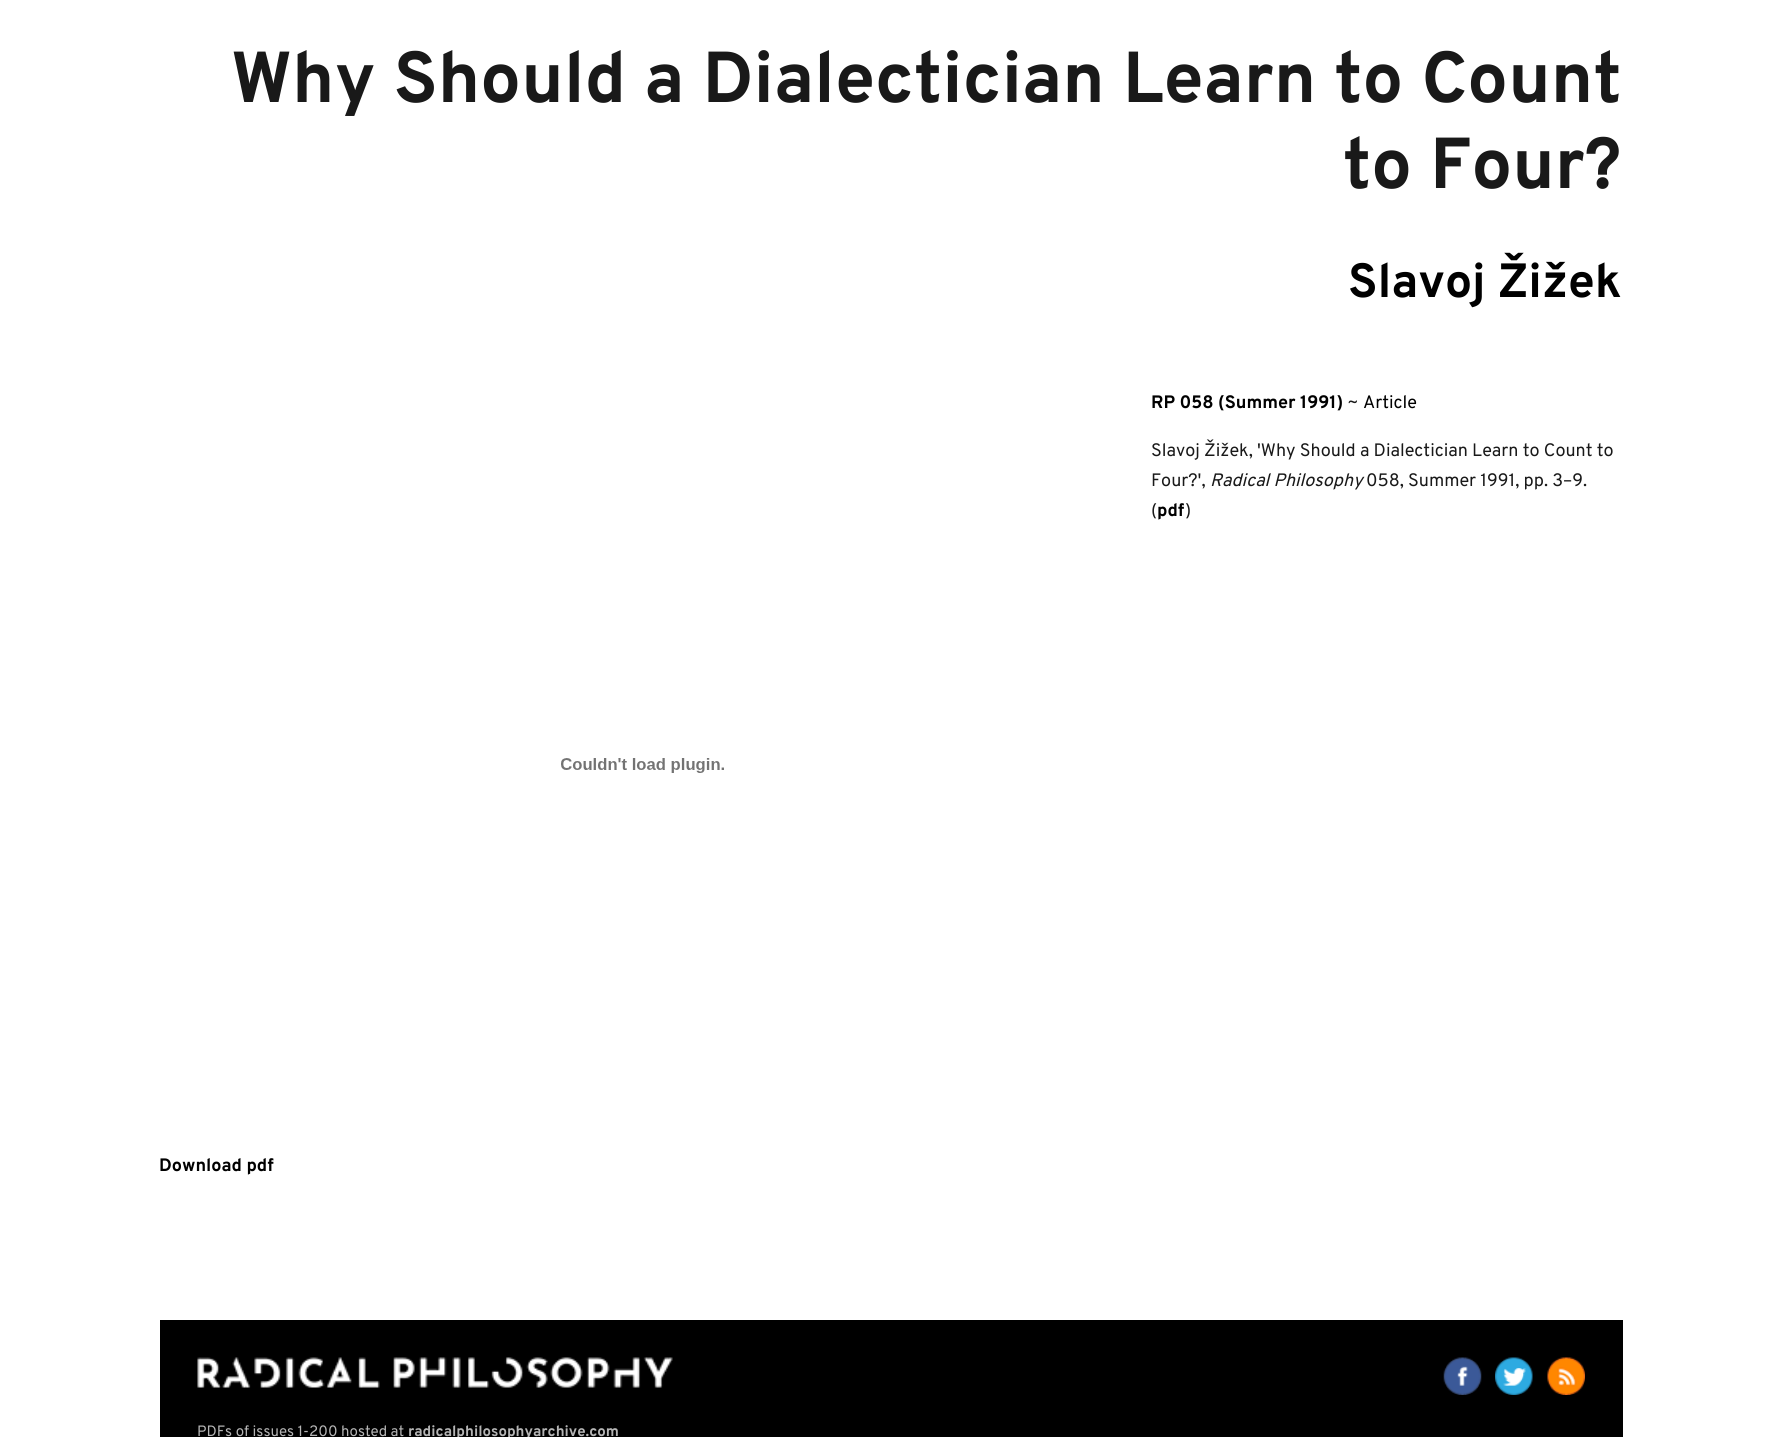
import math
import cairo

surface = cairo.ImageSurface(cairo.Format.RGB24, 1781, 1437)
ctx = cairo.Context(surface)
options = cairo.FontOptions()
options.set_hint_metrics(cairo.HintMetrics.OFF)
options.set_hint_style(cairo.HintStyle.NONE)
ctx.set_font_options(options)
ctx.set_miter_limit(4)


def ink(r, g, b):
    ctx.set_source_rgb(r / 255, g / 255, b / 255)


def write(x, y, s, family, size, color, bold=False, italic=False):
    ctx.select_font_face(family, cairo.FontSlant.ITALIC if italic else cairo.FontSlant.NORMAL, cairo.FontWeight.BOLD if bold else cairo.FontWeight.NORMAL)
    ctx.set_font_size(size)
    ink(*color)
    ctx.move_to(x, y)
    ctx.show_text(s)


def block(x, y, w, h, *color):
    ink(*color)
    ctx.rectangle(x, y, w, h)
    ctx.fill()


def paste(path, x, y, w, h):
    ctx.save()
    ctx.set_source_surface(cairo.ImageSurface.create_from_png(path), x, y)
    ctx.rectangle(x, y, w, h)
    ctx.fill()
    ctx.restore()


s1 = dict(family="Overpass", size=72, color=(25, 25, 25), bold=True)
s2 = dict(family="Overpass", size=48, color=(0, 0, 0), bold=True)
s3 = dict(family="Overpass", size=18, color=(0, 0, 0), bold=True)
s4 = dict(family="Overpass", size=18, color=(25, 25, 25))
s5 = dict(family="Overpass", size=18, color=(0, 0, 0))
s6 = dict(family="Overpass", size=18, color=(25, 25, 25), italic=True)
s7 = dict(family="Overpass", size=15, color=(181, 181, 181))
s8 = dict(family="Overpass", size=15, color=(181, 181, 181), bold=True)

ink(255, 255, 255)
ctx.paint()
write(231, 102, "Why Should a Dialectician Learn to Count", **s1)
write(1343, 188, "to Four?", **s1)
write(1348, 297, "Slavoj Žižek", **s2)
write(1151, 408, "RP 058 (Summer 1991)", **s3)
write(1347, 408, "~", **s4)
write(1363, 408, "Article", **s5)
write(1151, 456, "Slavoj Žižek, 'Why Should a Dialectician Learn to Count to", **s4)
write(1151, 486, "Four?',", **s4)
write(1210, 486, "Radical Philosophy", **s6)
write(1366, 486, "058, Summer 1991, pp. 3–9.", **s4)
write(1151, 516, "(", **s4)
write(1157, 516, "pdf", **s3)
write(1185, 516, ")", **s4)
paste("pic1.png", 561, 758, 163, 15)
write(159, 1171, "Download pdf", **s3)
block(160, 1320, 1463, 117, 0, 0, 0)
paste("pic2.png", 197, 1357, 476, 31)
paste("pic3.png", 1443, 1357, 39, 38)
paste("pic4.png", 1495, 1357, 38, 38)
paste("pic5.png", 1547, 1357, 38, 38)
write(197, 1436, "PDFs of issues 1-200 hosted at", **s7)
write(408, 1436, "radicalphilosophyarchive.com", **s8)
surface.write_to_png("screenshot.png")
